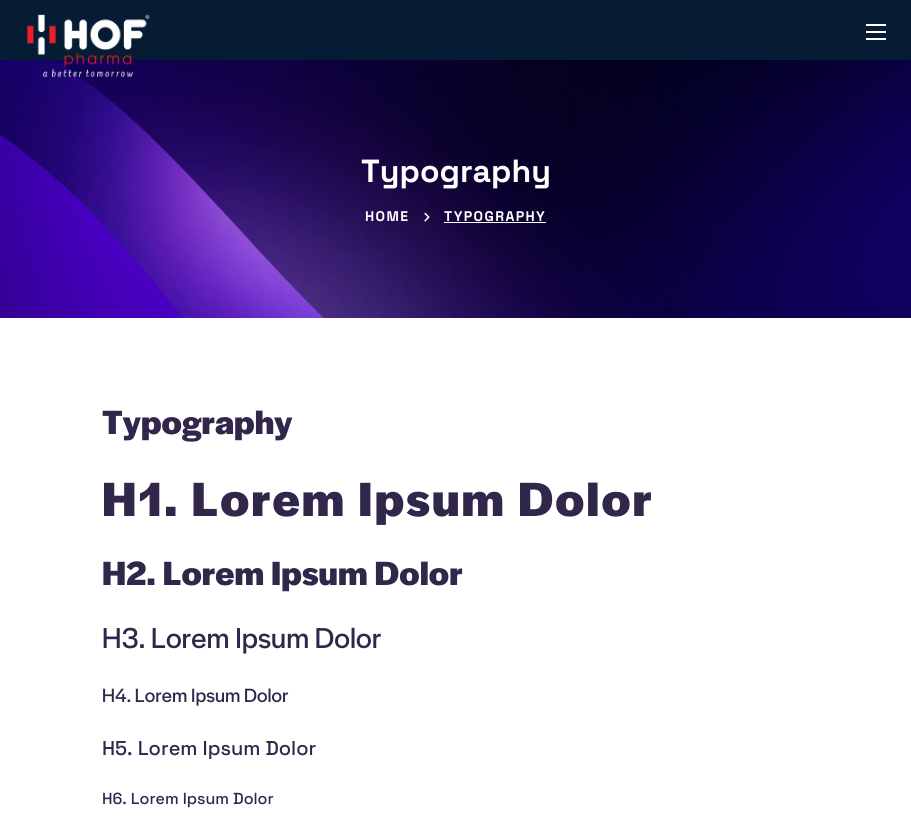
import math
import cairo

surface = cairo.ImageSurface(cairo.Format.RGB24, 911, 820)
ctx = cairo.Context(surface)
options = cairo.FontOptions()
options.set_hint_metrics(cairo.HintMetrics.OFF)
options.set_hint_style(cairo.HintStyle.NONE)
ctx.set_font_options(options)
ctx.set_miter_limit(4)


def ink(r, g, b):
    ctx.set_source_rgb(r / 255, g / 255, b / 255)


def write(x, y, s, family, size, color, bold=False, italic=False):
    ctx.select_font_face(family, cairo.FontSlant.ITALIC if italic else cairo.FontSlant.NORMAL, cairo.FontWeight.BOLD if bold else cairo.FontWeight.NORMAL)
    ctx.set_font_size(size)
    ink(*color)
    ctx.move_to(x, y)
    ctx.show_text(s)


def write_spaced(x, y, s, letter, word):
    ctx.move_to(x, y)
    for ch in s:
        ctx.show_text(ch)
        ctx.rel_move_to(letter + word * (ch == ' '), 0)


def block(x, y, w, h, *color):
    ink(*color)
    ctx.rectangle(x, y, w, h)
    ctx.fill()


def paste(path, x, y, w, h):
    ctx.save()
    ctx.set_source_surface(cairo.ImageSurface.create_from_png(path), x, y)
    ctx.rectangle(x, y, w, h)
    ctx.fill()
    ctx.restore()


s1 = dict(family="Space Grotesk", size=32, color=(255, 255, 255), bold=True)
s2 = dict(family="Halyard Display", size=35, color=(49, 39, 75), bold=True)
s3 = dict(family="Halyard Display", size=30, color=(49, 39, 75))
s4 = dict(family="Halyard Display", size=20, color=(49, 39, 75))
s5 = dict(family="Space Grotesk Medium", size=20, color=(49, 39, 75))
s6 = dict(family="Space Grotesk Medium", size=16, color=(49, 39, 75))

ink(255, 255, 255)
ctx.paint()
block(0, 0, 911, 60, 5, 28, 52)
paste("pic2.png", 0, 60, 911, 258)
paste("pic1.png", 26, 14, 124, 64)
block(866, 24, 20, 2, 255, 255, 255)
block(866, 31, 20, 2, 255, 255, 255)
block(866, 38, 20, 2, 255, 255, 255)
write(361, 182, "Typography", **s1)
ctx.set_font_size(14)
write_spaced(365, 221, "HOME", 1.4, 0)
paste("pic3.png", 424, 212, 6, 10)
write_spaced(444, 221, "TYPOGRAPHY", 1.4, 0)
block(444, 222, 102, 1, 255, 255, 255)
write(102, 434, "Typography", **s2)
ctx.set_font_size(50)
write_spaced(102, 516, "H1. Lorem Ipsum Dolor", 2, 0)
write(102, 585, "H2. Lorem Ipsum Dolor", **s2)
write(102, 648, "H3. Lorem Ipsum Dolor", **s3)
write(102, 702, "H4. Lorem Ipsum Dolor", **s4)
write(102, 755, "H5. Lorem Ipsum Dolor", **s5)
write(102, 804, "H6. Lorem Ipsum Dolor", **s6)
surface.write_to_png("screenshot.png")
